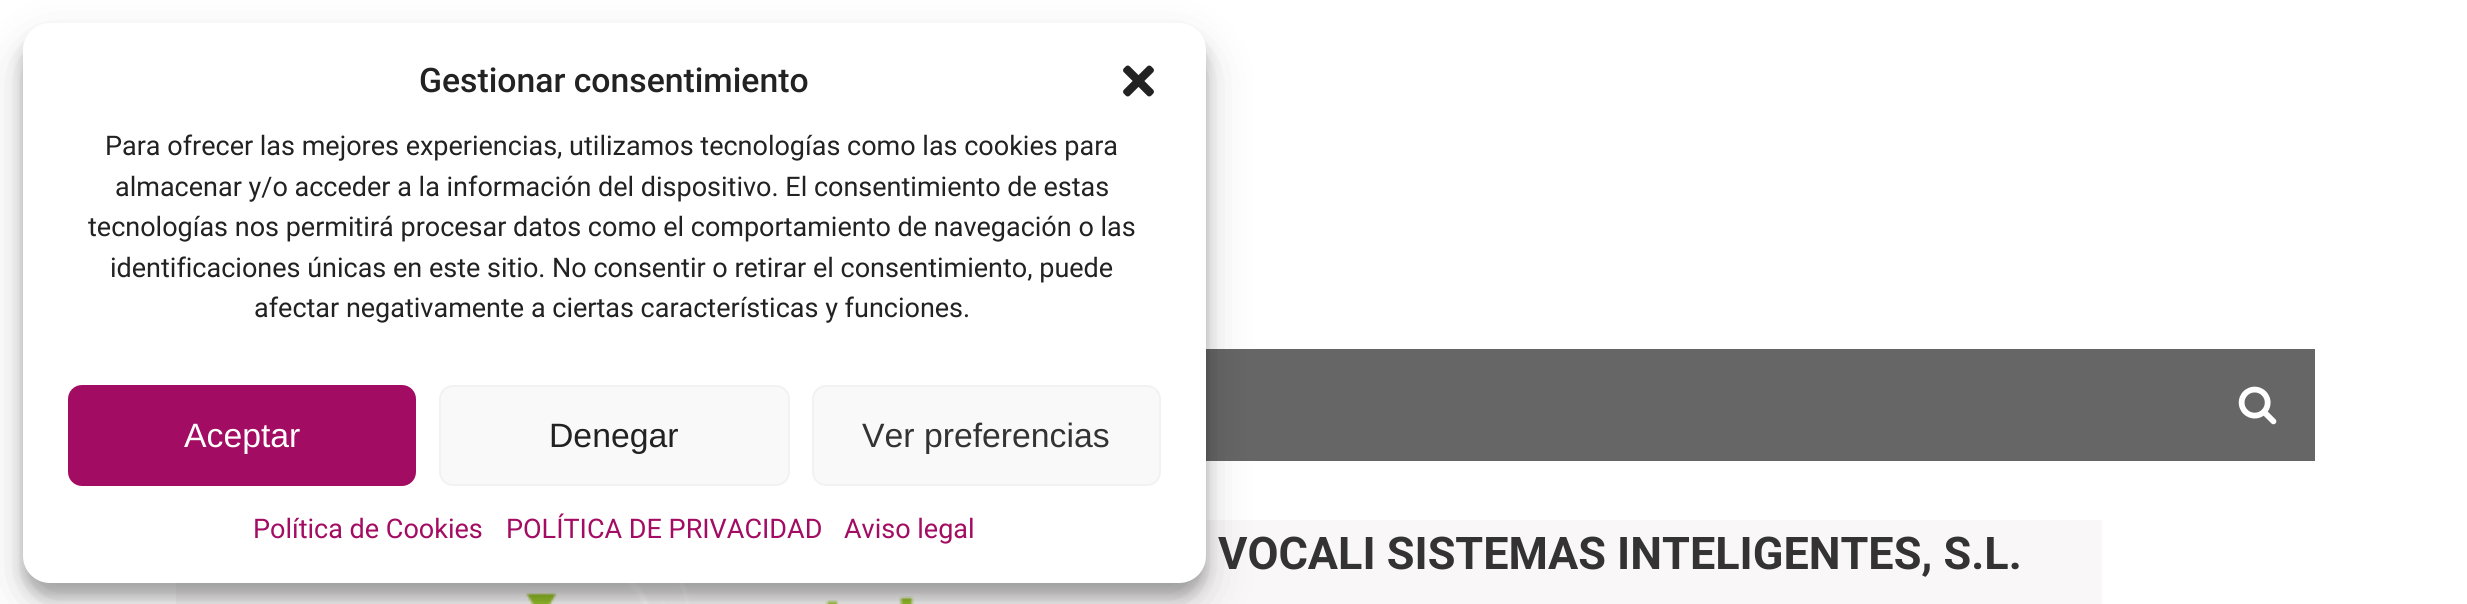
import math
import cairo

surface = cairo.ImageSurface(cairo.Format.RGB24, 2467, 604)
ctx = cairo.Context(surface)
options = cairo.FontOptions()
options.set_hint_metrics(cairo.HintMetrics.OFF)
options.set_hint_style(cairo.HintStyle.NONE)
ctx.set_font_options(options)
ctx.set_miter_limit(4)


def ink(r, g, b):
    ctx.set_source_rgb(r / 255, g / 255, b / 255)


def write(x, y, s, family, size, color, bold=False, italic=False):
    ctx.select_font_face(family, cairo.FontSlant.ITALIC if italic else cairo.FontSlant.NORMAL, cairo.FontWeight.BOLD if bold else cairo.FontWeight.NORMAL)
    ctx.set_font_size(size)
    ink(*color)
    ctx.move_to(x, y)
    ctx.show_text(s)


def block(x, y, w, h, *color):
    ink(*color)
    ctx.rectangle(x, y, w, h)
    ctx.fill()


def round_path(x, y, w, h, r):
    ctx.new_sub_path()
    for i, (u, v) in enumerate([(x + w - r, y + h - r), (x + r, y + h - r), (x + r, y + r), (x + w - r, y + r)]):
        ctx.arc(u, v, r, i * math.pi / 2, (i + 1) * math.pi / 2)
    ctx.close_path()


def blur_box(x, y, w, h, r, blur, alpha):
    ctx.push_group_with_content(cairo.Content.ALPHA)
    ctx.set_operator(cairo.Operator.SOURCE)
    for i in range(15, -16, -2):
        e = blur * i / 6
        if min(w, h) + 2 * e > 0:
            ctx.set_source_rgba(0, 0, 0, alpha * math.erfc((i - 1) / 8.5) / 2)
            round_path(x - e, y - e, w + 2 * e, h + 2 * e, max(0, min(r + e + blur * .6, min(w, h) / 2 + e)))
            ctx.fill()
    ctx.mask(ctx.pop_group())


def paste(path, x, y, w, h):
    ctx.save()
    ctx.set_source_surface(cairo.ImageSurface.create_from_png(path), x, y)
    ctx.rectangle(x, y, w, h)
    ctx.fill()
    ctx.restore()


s1 = dict(family="Roboto Medium", size=33.75, color=(34, 34, 34))
s2 = dict(family="Roboto", size=27, color=(34, 34, 34))
s3 = dict(family="Liberation Sans", size=33.75, color=(255, 255, 255))
s4 = dict(family="Liberation Sans", size=33.75, color=(34, 34, 34))
s5 = dict(family="Liberation Sans", size=33.75, color=(51, 51, 51))
s6 = dict(family="Roboto", size=27, color=(162, 12, 98))
s7 = dict(family="Roboto", size=45, color=(51, 51, 51), bold=True)

ink(255, 255, 255)
ctx.paint()
block(1206, 349, 1109, 112, 102, 102, 102)
block(176, 520, 1926, 84, 249, 247, 247)
paste("pic3.png", 526, 583, 388, 21)
ink(0, 0, 0)
blur_box(23, 36, 1183, 560, 27, 7, 0.23)
blur_box(23, 45, 1183, 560, 27, 22.5, 0.19)
ink(255, 255, 255)
round_path(23, 23, 1183, 560, 27)
ctx.fill()
write(419, 92, "Gestionar consentimiento", **s1)
paste("pic1.png", 1123, 65, 31, 32)
write(105, 155, "Para ofrecer las mejores experiencias, utilizamos tecnologías como las cookies para", **s2)
write(115, 196, "almacenar y/o acceder a la información del dispositivo. El consentimiento de estas", **s2)
write(88, 236, "tecnologías nos permitirá procesar datos como el comportamiento de navegación o las", **s2)
write(110, 277, "identificaciones únicas en este sitio. No consentir o retirar el consentimiento, puede", **s2)
write(254, 317, "afectar negativamente a ciertas características y funciones.", **s2)
ink(162, 12, 98)
round_path(69, 386, 346, 99, 13)
ctx.fill_preserve()
ctx.stroke()
write(184, 447, "Aceptar", **s3)
ink(249, 249, 249)
round_path(440, 386, 349, 99, 13)
ctx.fill_preserve()
ink(242, 242, 242)
ctx.stroke()
write(549, 447, "Denegar", **s4)
ink(249, 249, 249)
round_path(813, 386, 347, 99, 13)
ctx.fill_preserve()
ink(242, 242, 242)
ctx.stroke()
write(862, 447, "Ver preferencias", **s5)
write(253, 538, "Política de Cookies", **s6)
write(506, 538, "POLÍTICA DE PRIVACIDAD", **s6)
write(844, 538, "Aviso legal", **s6)
paste("pic2.png", 2238, 386, 39, 39)
write(1218, 569, "VOCALI SISTEMAS INTELIGENTES, S.L.", **s7)
surface.write_to_png("screenshot.png")
